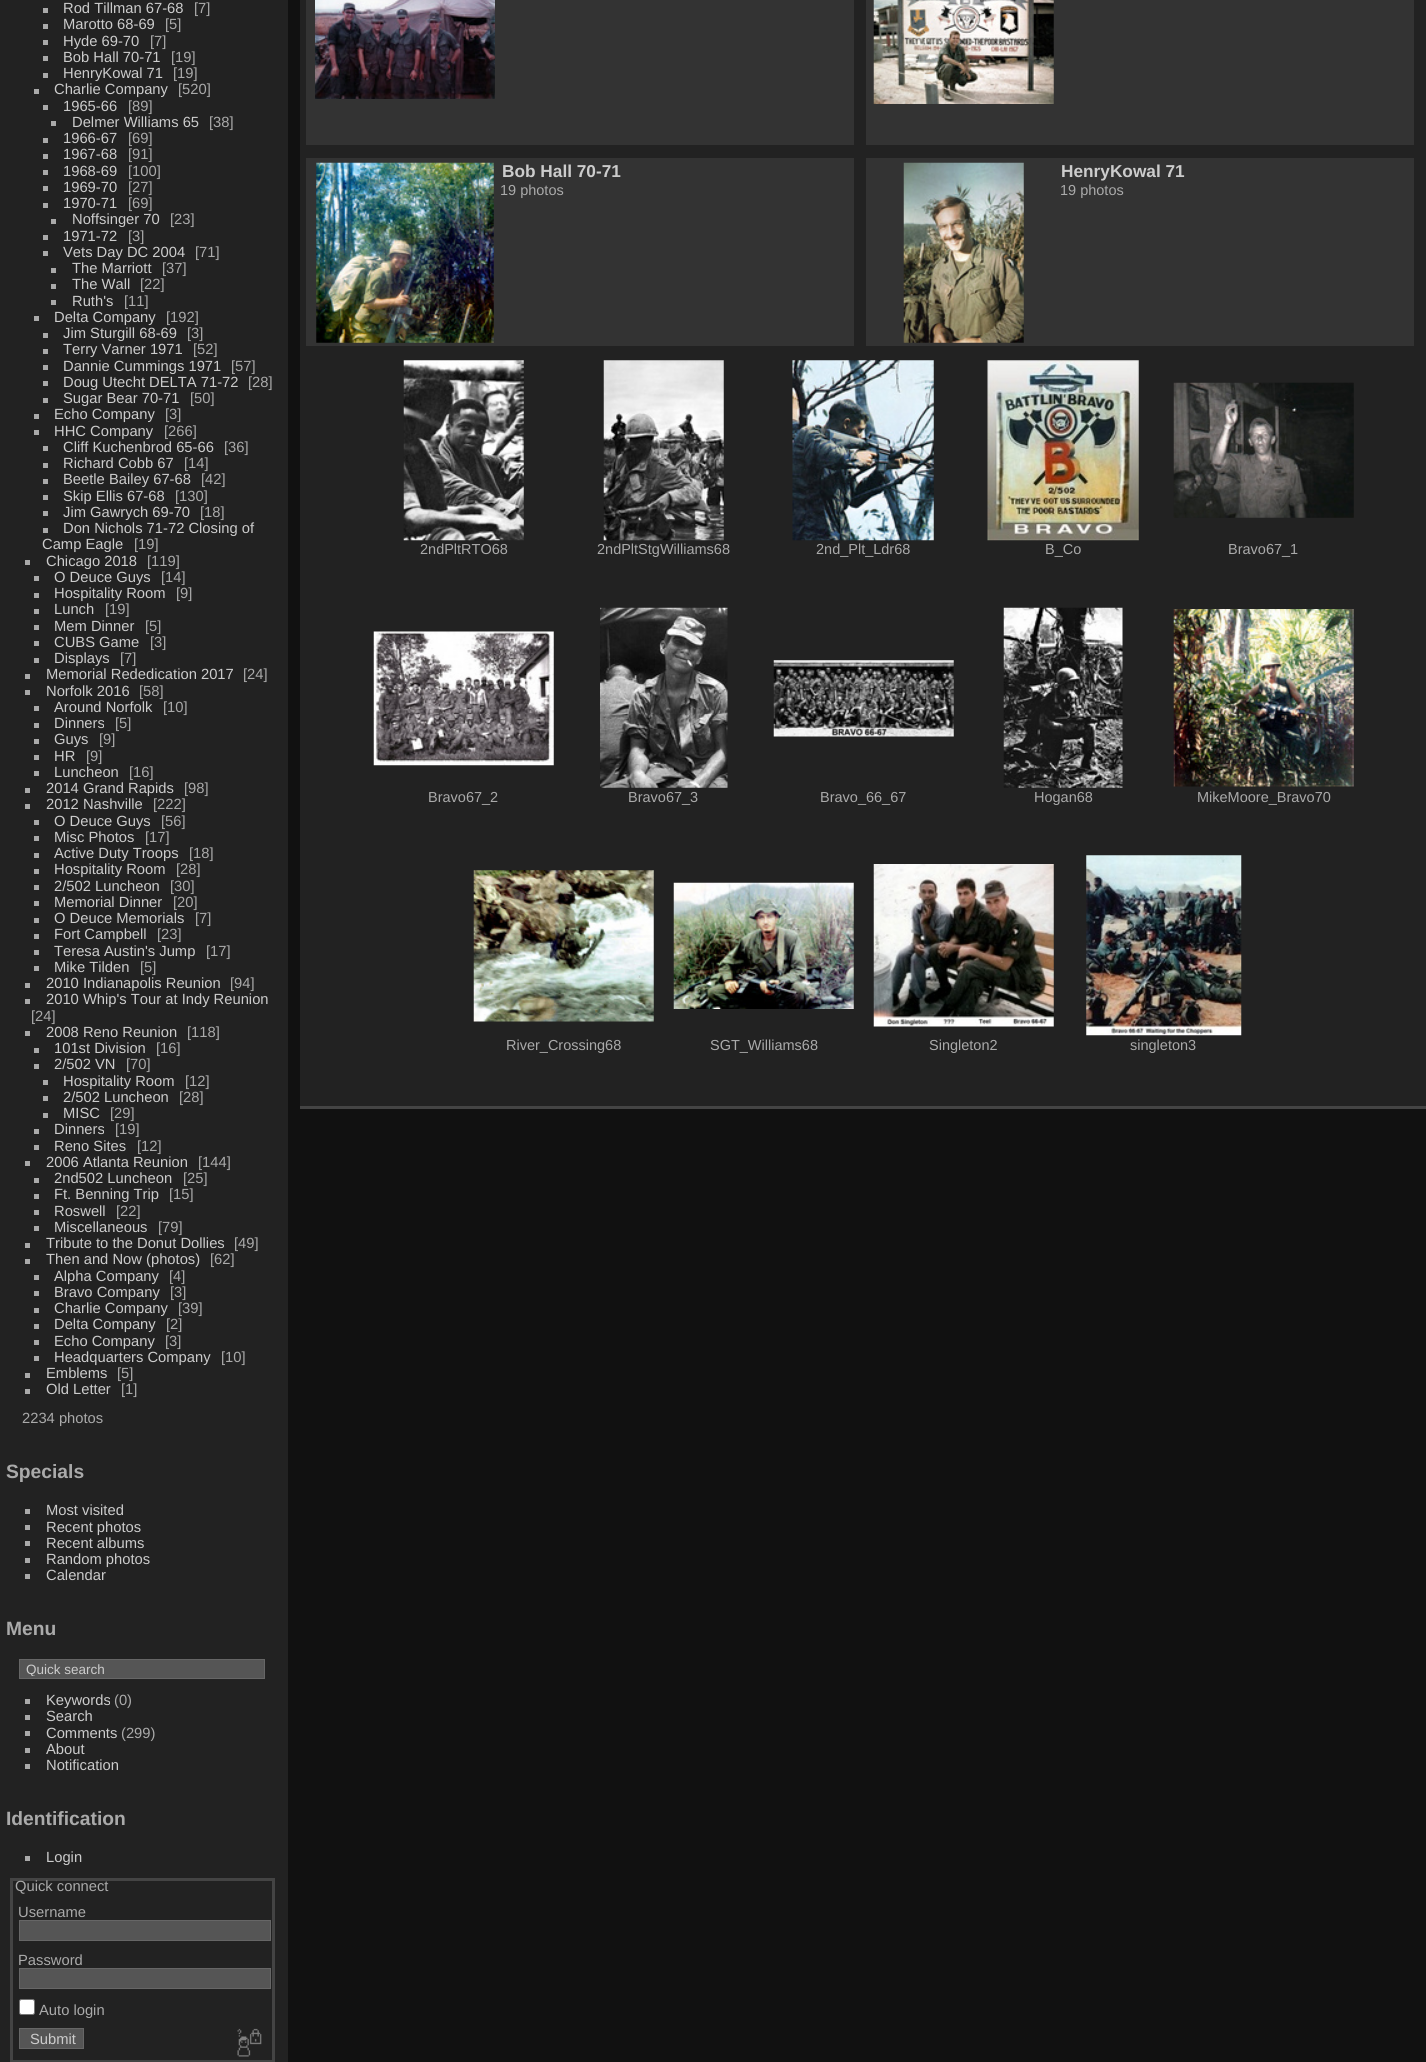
import math
import cairo

surface = cairo.ImageSurface(cairo.Format.RGB24, 1426, 2062)
ctx = cairo.Context(surface)
options = cairo.FontOptions()
options.set_hint_metrics(cairo.HintMetrics.OFF)
options.set_hint_style(cairo.HintStyle.NONE)
ctx.set_font_options(options)
ctx.set_miter_limit(4)


def ink(r, g, b):
    ctx.set_source_rgb(r / 255, g / 255, b / 255)


def write(x, y, s, family, size, color, bold=False, italic=False):
    ctx.select_font_face(family, cairo.FontSlant.ITALIC if italic else cairo.FontSlant.NORMAL, cairo.FontWeight.BOLD if bold else cairo.FontWeight.NORMAL)
    ctx.set_font_size(size)
    ink(*color)
    ctx.move_to(x, y)
    ctx.show_text(s)


def block(x, y, w, h, *color):
    ink(*color)
    ctx.rectangle(x, y, w, h)
    ctx.fill()


def round_path(x, y, w, h, r):
    ctx.new_sub_path()
    for i, (u, v) in enumerate([(x + w - r, y + h - r), (x + r, y + h - r), (x + r, y + r), (x + w - r, y + r)]):
        ctx.arc(u, v, r, i * math.pi / 2, (i + 1) * math.pi / 2)
    ctx.close_path()


def paste(path, x, y, w, h):
    ctx.save()
    ctx.set_source_surface(cairo.ImageSurface.create_from_png(path), x, y)
    ctx.rectangle(x, y, w, h)
    ctx.fill()
    ctx.restore()


s1 = dict(family="Liberation Sans", size=14.75, color=(204, 204, 204))
s2 = dict(family="Liberation Sans", size=14.75, color=(170, 170, 170))
s3 = dict(family="Liberation Sans", size=19.25, color=(170, 170, 170), bold=True)
s4 = dict(family="Liberation Sans", size=13.5, color=(204, 204, 204))
s5 = dict(family="Liberation Sans", size=17.25, color=(204, 204, 204), bold=True)
s6 = dict(family="Liberation Sans", size=14.5, color=(170, 170, 170))

ink(17, 17, 17)
ctx.paint()
block(0, 0, 288, 2062, 34, 34, 34)
block(43, 8, 5, 5, 170, 170, 170)
write(63, 13, "Rod Tillman 67-68", **s1)
write(194, 13, "[7]", **s2)
block(43, 24, 5, 5, 170, 170, 170)
write(63, 29, "Marotto 68-69", **s1)
write(165, 29, "[5]", **s2)
block(43, 40, 5, 5, 170, 170, 170)
write(63, 46, "Hyde 69-70", **s1)
write(150, 46, "[7]", **s2)
block(43, 56, 5, 5, 170, 170, 170)
write(63, 62, "Bob Hall 70-71", **s1)
write(171, 62, "[19]", **s2)
block(43, 73, 5, 5, 170, 170, 170)
write(63, 78, "HenryKowal 71", **s1)
write(173, 78, "[19]", **s2)
block(34, 89, 5, 5, 170, 170, 170)
write(54, 94, "Charlie Company", **s1)
write(178, 94, "[520]", **s2)
block(43, 105, 5, 5, 170, 170, 170)
write(63, 111, "1965-66", **s1)
write(128, 111, "[89]", **s2)
block(51, 121, 5, 5, 170, 170, 170)
write(72, 127, "Delmer Williams 65", **s1)
write(209, 127, "[38]", **s2)
block(43, 138, 5, 5, 170, 170, 170)
write(63, 143, "1966-67", **s1)
write(128, 143, "[69]", **s2)
block(43, 154, 5, 5, 170, 170, 170)
write(63, 159, "1967-68", **s1)
write(128, 159, "[91]", **s2)
block(43, 170, 5, 5, 170, 170, 170)
write(63, 176, "1968-69", **s1)
write(128, 176, "[100]", **s2)
block(43, 186, 5, 5, 170, 170, 170)
write(63, 192, "1969-70", **s1)
write(128, 192, "[27]", **s2)
block(43, 203, 5, 5, 170, 170, 170)
write(63, 208, "1970-71", **s1)
write(128, 208, "[69]", **s2)
block(51, 219, 5, 5, 170, 170, 170)
write(72, 224, "Noffsinger 70", **s1)
write(170, 224, "[23]", **s2)
block(43, 235, 5, 5, 170, 170, 170)
write(63, 241, "1971-72", **s1)
write(128, 241, "[3]", **s2)
block(43, 251, 5, 5, 170, 170, 170)
write(63, 257, "Vets Day DC 2004", **s1)
write(195, 257, "[71]", **s2)
block(51, 268, 5, 5, 170, 170, 170)
write(72, 273, "The Marriott", **s1)
write(162, 273, "[37]", **s2)
block(51, 284, 5, 5, 170, 170, 170)
write(72, 289, "The Wall", **s1)
write(140, 289, "[22]", **s2)
block(51, 300, 5, 5, 170, 170, 170)
write(72, 306, "Ruth's", **s1)
write(124, 306, "[11]", **s2)
block(34, 316, 5, 5, 170, 170, 170)
write(54, 322, "Delta Company", **s1)
write(166, 322, "[192]", **s2)
block(43, 333, 5, 5, 170, 170, 170)
write(63, 338, "Jim Sturgill 68-69", **s1)
write(187, 338, "[3]", **s2)
block(43, 349, 5, 5, 170, 170, 170)
write(63, 354, "Terry Varner 1971", **s1)
write(193, 354, "[52]", **s2)
block(43, 365, 5, 5, 170, 170, 170)
write(63, 371, "Dannie Cummings 1971", **s1)
write(231, 371, "[57]", **s2)
block(43, 381, 5, 5, 170, 170, 170)
write(63, 387, "Doug Utecht DELTA 71-72", **s1)
write(248, 387, "[28]", **s2)
block(43, 398, 5, 5, 170, 170, 170)
write(63, 403, "Sugar Bear 70-71", **s1)
write(190, 403, "[50]", **s2)
block(34, 414, 5, 5, 170, 170, 170)
write(54, 419, "Echo Company", **s1)
write(165, 419, "[3]", **s2)
block(34, 430, 5, 5, 170, 170, 170)
write(54, 436, "HHC Company", **s1)
write(164, 436, "[266]", **s2)
block(43, 446, 5, 5, 170, 170, 170)
write(63, 452, "Cliff Kuchenbrod 65-66", **s1)
write(224, 452, "[36]", **s2)
block(43, 463, 5, 5, 170, 170, 170)
write(63, 468, "Richard Cobb 67", **s1)
write(184, 468, "[14]", **s2)
block(43, 479, 5, 5, 170, 170, 170)
write(63, 484, "Beetle Bailey 67-68", **s1)
write(201, 484, "[42]", **s2)
block(43, 495, 5, 5, 170, 170, 170)
write(63, 501, "Skip Ellis 67-68", **s1)
write(175, 501, "[130]", **s2)
block(43, 511, 5, 5, 170, 170, 170)
write(63, 517, "Jim Gawrych 69-70", **s1)
write(200, 517, "[18]", **s2)
block(43, 528, 5, 5, 170, 170, 170)
write(63, 533, "Don Nichols 71-72 Closing of", **s1)
write(42, 549, "Camp Eagle", **s1)
write(134, 549, "[19]", **s2)
block(25, 560, 5, 5, 170, 170, 170)
write(46, 566, "Chicago 2018", **s1)
write(147, 566, "[119]", **s2)
block(34, 576, 5, 5, 170, 170, 170)
write(54, 582, "O Deuce Guys", **s1)
write(161, 582, "[14]", **s2)
block(34, 593, 5, 5, 170, 170, 170)
write(54, 598, "Hospitality Room", **s1)
write(176, 598, "[9]", **s2)
block(34, 609, 5, 5, 170, 170, 170)
write(54, 614, "Lunch", **s1)
write(105, 614, "[19]", **s2)
block(34, 625, 5, 5, 170, 170, 170)
write(54, 631, "Mem Dinner", **s1)
write(145, 631, "[5]", **s2)
block(34, 641, 5, 5, 170, 170, 170)
write(54, 647, "CUBS Game", **s1)
write(150, 647, "[3]", **s2)
block(34, 658, 5, 5, 170, 170, 170)
write(54, 663, "Displays", **s1)
write(120, 663, "[7]", **s2)
block(25, 674, 5, 5, 170, 170, 170)
write(46, 679, "Memorial Rededication 2017", **s1)
write(243, 679, "[24]", **s2)
block(25, 690, 5, 5, 170, 170, 170)
write(46, 696, "Norfolk 2016", **s1)
write(139, 696, "[58]", **s2)
block(34, 706, 5, 5, 170, 170, 170)
write(54, 712, "Around Norfolk", **s1)
write(163, 712, "[10]", **s2)
block(34, 723, 5, 5, 170, 170, 170)
write(54, 728, "Dinners", **s1)
write(115, 728, "[5]", **s2)
block(34, 739, 5, 5, 170, 170, 170)
write(54, 744, "Guys", **s1)
write(99, 744, "[9]", **s2)
block(34, 755, 5, 5, 170, 170, 170)
write(54, 761, "HR", **s1)
write(86, 761, "[9]", **s2)
block(34, 771, 5, 5, 170, 170, 170)
write(54, 777, "Luncheon", **s1)
write(129, 777, "[16]", **s2)
block(25, 788, 5, 5, 170, 170, 170)
write(46, 793, "2014 Grand Rapids", **s1)
write(184, 793, "[98]", **s2)
block(25, 804, 5, 5, 170, 170, 170)
write(46, 809, "2012 Nashville", **s1)
write(153, 809, "[222]", **s2)
block(34, 820, 5, 5, 170, 170, 170)
write(54, 826, "O Deuce Guys", **s1)
write(161, 826, "[56]", **s2)
block(34, 836, 5, 5, 170, 170, 170)
write(54, 842, "Misc Photos", **s1)
write(145, 842, "[17]", **s2)
block(34, 853, 5, 5, 170, 170, 170)
write(54, 858, "Active Duty Troops", **s1)
write(189, 858, "[18]", **s2)
block(34, 869, 5, 5, 170, 170, 170)
write(54, 874, "Hospitality Room", **s1)
write(176, 874, "[28]", **s2)
block(34, 885, 5, 5, 170, 170, 170)
write(54, 891, "2/502 Luncheon", **s1)
write(170, 891, "[30]", **s2)
block(34, 901, 5, 5, 170, 170, 170)
write(54, 907, "Memorial Dinner", **s1)
write(173, 907, "[20]", **s2)
block(34, 918, 5, 5, 170, 170, 170)
write(54, 923, "O Deuce Memorials", **s1)
write(195, 923, "[7]", **s2)
block(34, 934, 5, 5, 170, 170, 170)
write(54, 939, "Fort Campbell", **s1)
write(157, 939, "[23]", **s2)
block(34, 950, 5, 5, 170, 170, 170)
write(54, 956, "Teresa Austin's Jump", **s1)
write(206, 956, "[17]", **s2)
block(34, 966, 5, 5, 170, 170, 170)
write(54, 972, "Mike Tilden", **s1)
write(140, 972, "[5]", **s2)
block(25, 983, 5, 5, 170, 170, 170)
write(46, 988, "2010 Indianapolis Reunion", **s1)
write(230, 988, "[94]", **s2)
block(25, 999, 5, 5, 170, 170, 170)
write(46, 1004, "2010 Whip's Tour at Indy Reunion", **s1)
write(31, 1021, "[24]", **s2)
block(25, 1031, 5, 5, 170, 170, 170)
write(46, 1037, "2008 Reno Reunion", **s1)
write(187, 1037, "[118]", **s2)
block(34, 1048, 5, 5, 170, 170, 170)
write(54, 1053, "101st Division", **s1)
write(156, 1053, "[16]", **s2)
block(34, 1064, 5, 5, 170, 170, 170)
write(54, 1069, "2/502 VN", **s1)
write(126, 1069, "[70]", **s2)
block(43, 1080, 5, 5, 170, 170, 170)
write(63, 1086, "Hospitality Room", **s1)
write(185, 1086, "[12]", **s2)
block(43, 1096, 5, 5, 170, 170, 170)
write(63, 1102, "2/502 Luncheon", **s1)
write(179, 1102, "[28]", **s2)
block(43, 1113, 5, 5, 170, 170, 170)
write(63, 1118, "MISC", **s1)
write(110, 1118, "[29]", **s2)
block(34, 1129, 5, 5, 170, 170, 170)
write(54, 1134, "Dinners", **s1)
write(115, 1134, "[19]", **s2)
block(34, 1145, 5, 5, 170, 170, 170)
write(54, 1151, "Reno Sites", **s1)
write(137, 1151, "[12]", **s2)
block(25, 1161, 5, 5, 170, 170, 170)
write(46, 1167, "2006 Atlanta Reunion", **s1)
write(198, 1167, "[144]", **s2)
block(34, 1178, 5, 5, 170, 170, 170)
write(54, 1183, "2nd502 Luncheon", **s1)
write(183, 1183, "[25]", **s2)
block(34, 1194, 5, 5, 170, 170, 170)
write(54, 1199, "Ft. Benning Trip", **s1)
write(169, 1199, "[15]", **s2)
block(34, 1210, 5, 5, 170, 170, 170)
write(54, 1216, "Roswell", **s1)
write(116, 1216, "[22]", **s2)
block(34, 1226, 5, 5, 170, 170, 170)
write(54, 1232, "Miscellaneous", **s1)
write(158, 1232, "[79]", **s2)
block(25, 1243, 5, 5, 170, 170, 170)
write(46, 1248, "Tribute to the Donut Dollies", **s1)
write(234, 1248, "[49]", **s2)
block(25, 1259, 5, 5, 170, 170, 170)
write(46, 1264, "Then and Now (photos)", **s1)
write(210, 1264, "[62]", **s2)
block(34, 1275, 5, 5, 170, 170, 170)
write(54, 1281, "Alpha Company", **s1)
write(169, 1281, "[4]", **s2)
block(34, 1291, 5, 5, 170, 170, 170)
write(54, 1297, "Bravo Company", **s1)
write(170, 1297, "[3]", **s2)
block(34, 1308, 5, 5, 170, 170, 170)
write(54, 1313, "Charlie Company", **s1)
write(178, 1313, "[39]", **s2)
block(34, 1324, 5, 5, 170, 170, 170)
write(54, 1329, "Delta Company", **s1)
write(166, 1329, "[2]", **s2)
block(34, 1340, 5, 5, 170, 170, 170)
write(54, 1346, "Echo Company", **s1)
write(165, 1346, "[3]", **s2)
block(34, 1356, 5, 5, 170, 170, 170)
write(54, 1362, "Headquarters Company", **s1)
write(221, 1362, "[10]", **s2)
block(25, 1373, 5, 5, 170, 170, 170)
write(46, 1378, "Emblems", **s1)
write(117, 1378, "[5]", **s2)
block(25, 1389, 5, 5, 170, 170, 170)
write(46, 1394, "Old Letter", **s1)
write(121, 1394, "[1]", **s2)
write(22, 1423, "2234 photos", **s2)
write(6, 1478, "Specials", **s3)
block(25, 1509, 5, 5, 170, 170, 170)
write(46, 1515, "Most visited", **s1)
block(25, 1525, 5, 5, 170, 170, 170)
write(46, 1532, "Recent photos", **s1)
block(25, 1541, 5, 5, 170, 170, 170)
write(46, 1548, "Recent albums", **s1)
block(25, 1558, 5, 5, 170, 170, 170)
write(46, 1564, "Random photos", **s1)
block(25, 1574, 5, 5, 170, 170, 170)
write(46, 1580, "Calendar", **s1)
write(6, 1635, "Menu", **s3)
ink(85, 85, 85)
ctx.rectangle(19.5, 1659.5, 245, 19)
ctx.fill_preserve()
ink(102, 102, 102)
ctx.set_line_width(1)
ctx.stroke()
ctx.save()
ctx.rectangle(23, 1661, 238, 15)
ctx.clip()
write(26, 1674, "Quick search", **s4)
ctx.restore()
block(25, 1699, 5, 5, 170, 170, 170)
write(46, 1705, "Keywords", **s1)
write(114, 1705, "(0)", **s2)
block(25, 1715, 5, 5, 170, 170, 170)
write(46, 1721, "Search", **s1)
block(25, 1731, 5, 5, 170, 170, 170)
write(46, 1738, "Comments", **s1)
write(121, 1738, "(299)", **s2)
block(25, 1748, 5, 5, 170, 170, 170)
write(46, 1754, "About", **s1)
block(25, 1764, 5, 5, 170, 170, 170)
write(46, 1770, "Notification", **s1)
write(6, 1825, "Identification", **s3)
block(25, 1856, 5, 5, 170, 170, 170)
write(46, 1862, "Login", **s1)
ctx.rectangle(11.5, 1879.5, 262, 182)
ink(68, 68, 68)
ctx.set_line_width(3)
ctx.stroke()
write(15, 1891, "Quick connect", **s2)
write(18, 1917, "Username", **s2)
ink(85, 85, 85)
ctx.rectangle(19.5, 1920.5, 251, 20)
ctx.fill_preserve()
ink(102, 102, 102)
ctx.set_line_width(1)
ctx.stroke()
write(18, 1965, "Password", **s2)
ink(85, 85, 85)
ctx.rectangle(19.5, 1968.5, 251, 20)
ctx.fill_preserve()
ink(102, 102, 102)
ctx.stroke()
ink(255, 255, 255)
round_path(19.5, 1999.5, 15, 15, 2)
ctx.fill_preserve()
ink(118, 118, 118)
ctx.stroke()
write(39, 2015, "Auto login", **s2)
ink(85, 85, 85)
ctx.rectangle(19.5, 2028.5, 64, 20)
ctx.fill_preserve()
ink(102, 102, 102)
ctx.stroke()
write(30, 2044, "Submit", **s1)
paste("pic1.png", 237, 2028, 25, 29)
block(300, 0, 1126, 1106, 34, 34, 34)
block(300, 1106, 1126, 3, 68, 68, 68)
block(306, 0, 548, 145, 51, 51, 51)
paste("pic2.png", 315, 0, 180, 99)
block(866, 0, 548, 145, 51, 51, 51)
paste("pic3.png", 873, 0, 181, 104)
block(306, 158, 548, 188, 51, 51, 51)
paste("pic4.png", 316, 162, 178, 181)
write(502, 177, "Bob Hall 70-71", **s5)
write(500, 195, "19 photos", **s6)
block(866, 158, 548, 188, 51, 51, 51)
paste("pic5.png", 903, 162, 121, 181)
write(1061, 177, "HenryKowal 71", **s5)
write(1060, 195, "19 photos", **s6)
paste("pic6.png", 403, 360, 121, 181)
write(420, 554, "2ndPltRTO68", **s6)
paste("pic7.png", 603, 360, 121, 181)
write(597, 554, "2ndPltStgWilliams68", **s6)
paste("pic8.png", 792, 360, 142, 181)
write(816, 554, "2nd_Plt_Ldr68", **s6)
paste("pic9.png", 987, 360, 152, 181)
write(1045, 554, "B_Co", **s6)
paste("pic10.png", 1173, 382, 181, 136)
write(1228, 554, "Bravo67_1", **s6)
paste("pic11.png", 373, 631, 181, 135)
write(428, 802, "Bravo67_2", **s6)
paste("pic12.png", 600, 607, 128, 181)
write(628, 802, "Bravo67_3", **s6)
paste("pic13.png", 773, 660, 181, 77)
write(820, 802, "Bravo_66_67", **s6)
paste("pic14.png", 1003, 607, 120, 181)
write(1034, 802, "Hogan68", **s6)
paste("pic15.png", 1173, 609, 181, 178)
write(1197, 802, "MikeMoore_Bravo70", **s6)
paste("pic16.png", 473, 870, 181, 152)
write(506, 1050, "River_Crossing68", **s6)
paste("pic17.png", 673, 882, 181, 127)
write(710, 1050, "SGT_Williams68", **s6)
paste("pic18.png", 873, 864, 181, 163)
write(929, 1050, "Singleton2", **s6)
paste("pic19.png", 1086, 855, 156, 181)
write(1130, 1050, "singleton3", **s6)
surface.write_to_png("screenshot.png")
